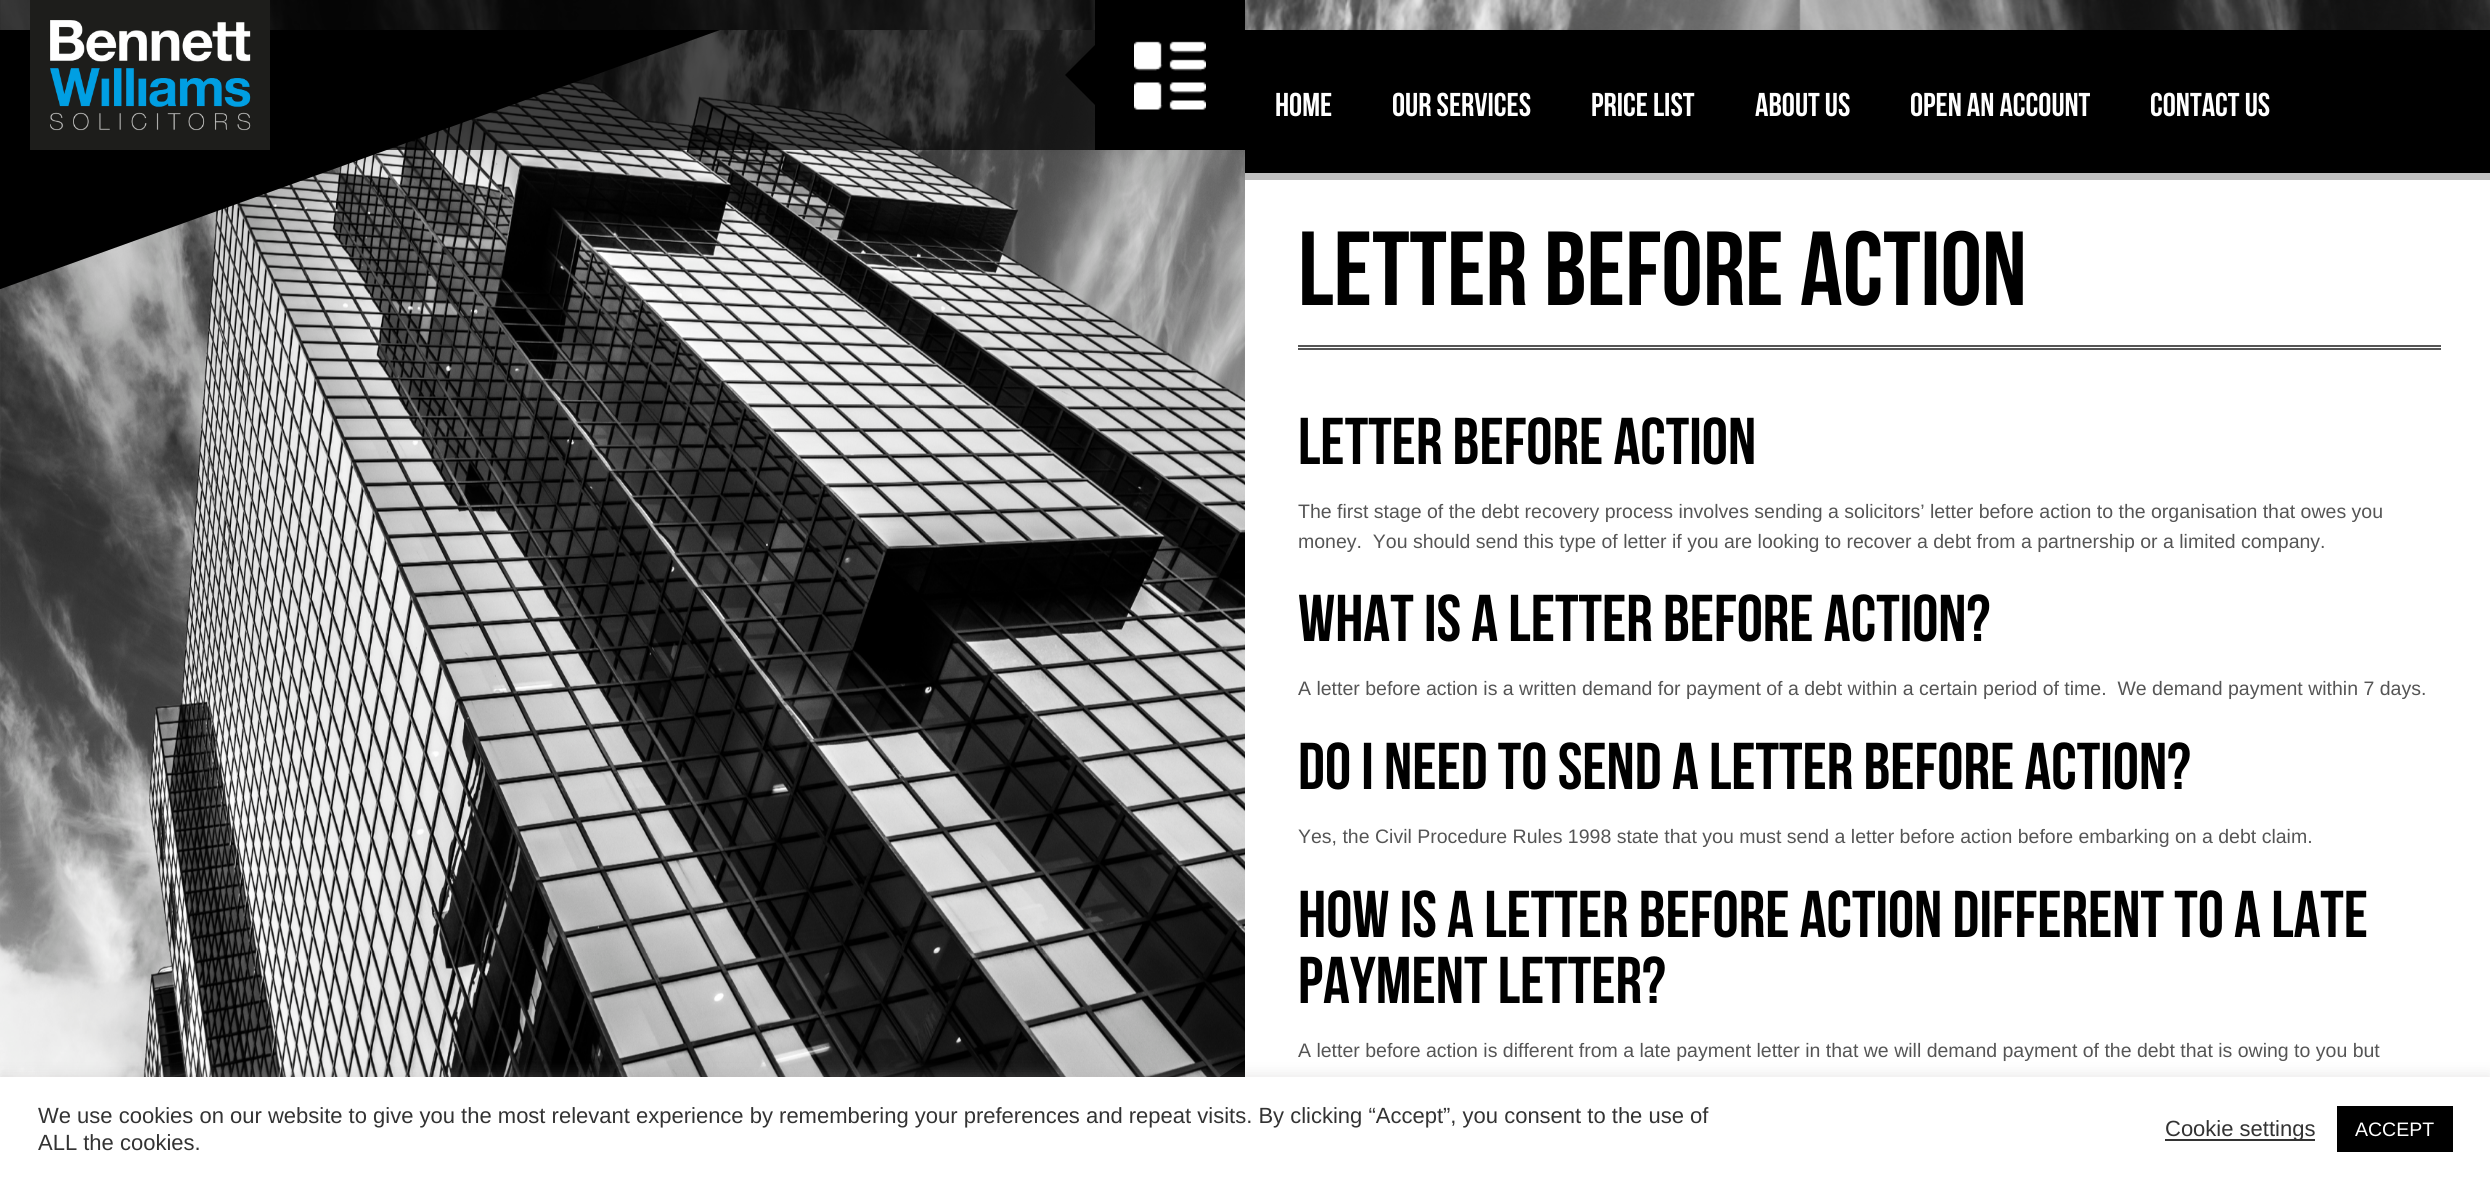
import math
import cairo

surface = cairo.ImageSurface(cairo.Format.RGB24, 2490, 1180)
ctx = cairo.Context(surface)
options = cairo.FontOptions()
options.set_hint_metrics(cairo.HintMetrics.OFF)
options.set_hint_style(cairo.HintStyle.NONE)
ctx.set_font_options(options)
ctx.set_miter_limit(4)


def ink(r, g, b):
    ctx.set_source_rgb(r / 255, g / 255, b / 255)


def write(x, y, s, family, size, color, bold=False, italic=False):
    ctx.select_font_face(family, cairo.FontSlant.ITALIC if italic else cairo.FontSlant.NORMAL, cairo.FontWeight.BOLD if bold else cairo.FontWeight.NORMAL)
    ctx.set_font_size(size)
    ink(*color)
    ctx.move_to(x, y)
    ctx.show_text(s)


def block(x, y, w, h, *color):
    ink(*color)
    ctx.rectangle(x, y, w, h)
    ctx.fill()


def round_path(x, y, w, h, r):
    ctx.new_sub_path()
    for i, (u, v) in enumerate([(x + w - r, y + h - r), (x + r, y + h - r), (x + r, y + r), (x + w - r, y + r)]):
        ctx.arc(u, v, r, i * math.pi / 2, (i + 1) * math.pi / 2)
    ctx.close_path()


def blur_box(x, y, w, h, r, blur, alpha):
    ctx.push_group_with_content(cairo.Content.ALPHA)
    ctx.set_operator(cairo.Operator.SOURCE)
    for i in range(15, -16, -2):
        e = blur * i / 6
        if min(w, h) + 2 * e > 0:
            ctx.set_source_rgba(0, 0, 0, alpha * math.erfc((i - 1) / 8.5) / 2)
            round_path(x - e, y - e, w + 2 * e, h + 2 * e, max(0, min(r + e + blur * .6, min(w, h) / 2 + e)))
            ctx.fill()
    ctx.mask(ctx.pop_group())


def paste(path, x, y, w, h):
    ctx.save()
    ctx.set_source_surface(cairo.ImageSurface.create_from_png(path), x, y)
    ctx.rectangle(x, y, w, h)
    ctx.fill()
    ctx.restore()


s1 = dict(family="Bebas Neue", size=33, color=(255, 255, 255))
s2 = dict(family="Bebas Neue", size=105, color=(0, 0, 0))
s3 = dict(family="Bebas Neue", size=66, color=(0, 0, 0))
s4 = dict(family="Liberation Sans", size=19.5, color=(85, 85, 85))
s5 = dict(family="Liberation Sans", size=22, color=(51, 51, 51))
s6 = dict(family="Liberation Sans", size=19.5, color=(255, 255, 255))

ink(255, 255, 255)
ctx.paint()
paste("pic1.png", 0, 0, 2490, 30)
paste("pic4.png", 0, 30, 1245, 1047)
ink(0, 0, 0)
ctx.new_path()
ctx.move_to(-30, 30)
ctx.line_to(720, 30)
ctx.line_to(-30, 300)
ctx.close_path()
ctx.fill()
ctx.set_source_rgba(0, 0, 0, 0.7)
ctx.rectangle(0, 0, 1095, 150)
ctx.fill()
paste("pic2.png", 30, 0, 240, 150)
block(1095, 0, 150, 150, 0, 0, 0)
paste("pic3.png", 1134, 41, 72, 69)
ctx.new_path()
ctx.move_to(1095, 45)
ctx.line_to(1095, 105)
ctx.line_to(1065, 75)
ctx.close_path()
ctx.fill()
ctx.new_path()
ctx.move_to(1245, 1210)
ctx.line_to(1020, 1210)
ctx.line_to(1245, 1060)
ctx.close_path()
ctx.fill()
block(1245, 30, 1245, 143, 0, 0, 0)
block(1245, 173, 1245, 7, 192, 192, 192)
write(1275, 116, "Home", **s1)
write(1392, 116, "Our Services", **s1)
write(1591, 116, "Price List", **s1)
write(1755, 116, "About Us", **s1)
write(1910, 116, "Open An Account", **s1)
write(2150, 116, "Contact Us", **s1)
write(1298, 305, "Letter Before Action", **s2)
block(1298, 345, 1143, 2, 85, 85, 85)
block(1298, 348, 1143, 2, 85, 85, 85)
write(1298, 464, "LETTER BEFORE ACTION", **s3)
write(1298, 518, "The first stage of the debt recovery process involves sending a solicitors’ letter before action to the organisation that owes you", **s4)
write(1298, 548, "money.  You should send this type of letter if you are looking to recover a debt from a partnership or a limited company.", **s4)
write(1298, 641, "WHAT IS A LETTER BEFORE ACTION?", **s3)
write(1298, 695, "A letter before action is a written demand for payment of a debt within a certain period of time.  We demand payment within 7 days.", **s4)
write(1298, 789, "DO I NEED TO SEND A LETTER BEFORE ACTION?", **s3)
write(1298, 843, "Yes, the Civil Procedure Rules 1998 state that you must send a letter before action before embarking on a debt claim.", **s4)
write(1298, 937, "HOW IS A LETTER BEFORE ACTION DIFFERENT TO A LATE", **s3)
write(1298, 1003, "PAYMENT LETTER?", **s3)
write(1298, 1057, "A letter before action is different from a late payment letter in that we will demand payment of the debt that is owing to you but", **s4)
ink(172, 171, 171)
blur_box(0, 1076, 2490, 103, 0, 7.5, 0.3)
block(0, 1077, 2490, 103, 255, 255, 255)
write(38, 1123, "We use cookies on our website to give you the most relevant experience by remembering your preferences and repeat visits. By clicking “Accept”, you consent to the use of", **s5)
write(38, 1150, "ALL the cookies.", **s5)
block(2165, 1139, 150, 2, 51, 51, 51)
write(2165, 1136, "Cookie settings", **s5)
block(2337, 1106, 116, 46, 0, 0, 0)
write(2355, 1136, "ACCEPT", **s6)
surface.write_to_png("screenshot.png")
